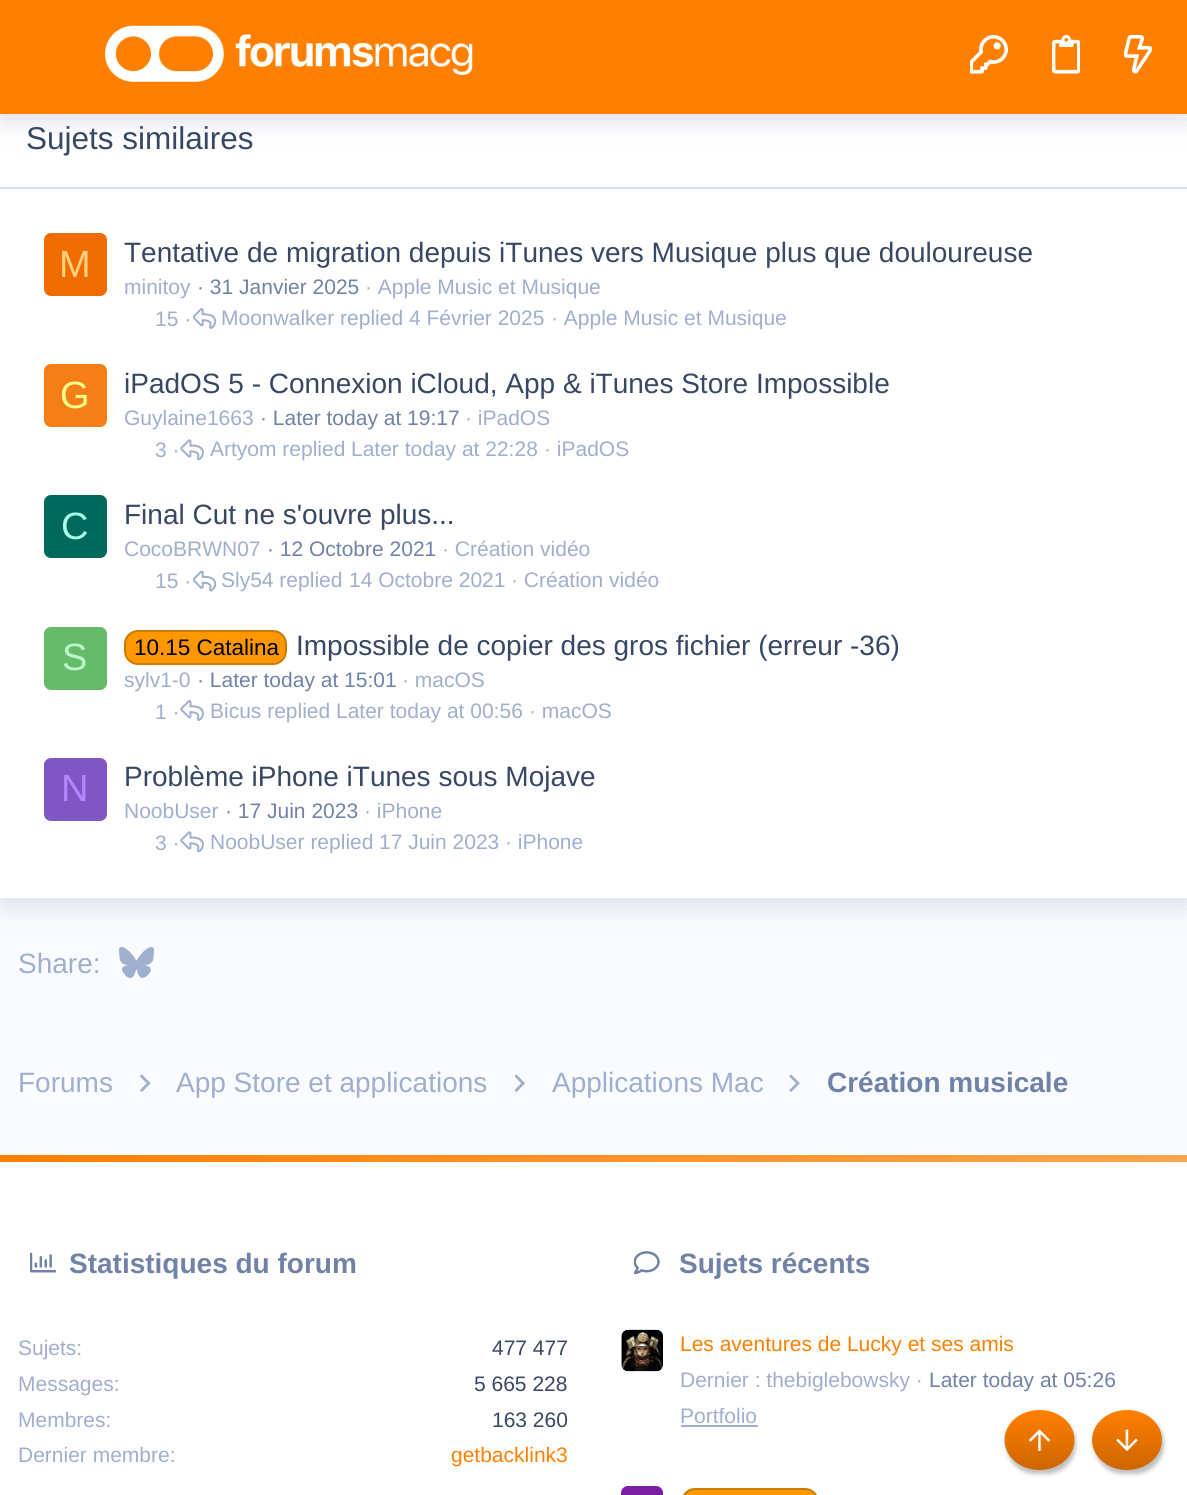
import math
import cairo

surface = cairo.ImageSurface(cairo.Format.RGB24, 1187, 1495)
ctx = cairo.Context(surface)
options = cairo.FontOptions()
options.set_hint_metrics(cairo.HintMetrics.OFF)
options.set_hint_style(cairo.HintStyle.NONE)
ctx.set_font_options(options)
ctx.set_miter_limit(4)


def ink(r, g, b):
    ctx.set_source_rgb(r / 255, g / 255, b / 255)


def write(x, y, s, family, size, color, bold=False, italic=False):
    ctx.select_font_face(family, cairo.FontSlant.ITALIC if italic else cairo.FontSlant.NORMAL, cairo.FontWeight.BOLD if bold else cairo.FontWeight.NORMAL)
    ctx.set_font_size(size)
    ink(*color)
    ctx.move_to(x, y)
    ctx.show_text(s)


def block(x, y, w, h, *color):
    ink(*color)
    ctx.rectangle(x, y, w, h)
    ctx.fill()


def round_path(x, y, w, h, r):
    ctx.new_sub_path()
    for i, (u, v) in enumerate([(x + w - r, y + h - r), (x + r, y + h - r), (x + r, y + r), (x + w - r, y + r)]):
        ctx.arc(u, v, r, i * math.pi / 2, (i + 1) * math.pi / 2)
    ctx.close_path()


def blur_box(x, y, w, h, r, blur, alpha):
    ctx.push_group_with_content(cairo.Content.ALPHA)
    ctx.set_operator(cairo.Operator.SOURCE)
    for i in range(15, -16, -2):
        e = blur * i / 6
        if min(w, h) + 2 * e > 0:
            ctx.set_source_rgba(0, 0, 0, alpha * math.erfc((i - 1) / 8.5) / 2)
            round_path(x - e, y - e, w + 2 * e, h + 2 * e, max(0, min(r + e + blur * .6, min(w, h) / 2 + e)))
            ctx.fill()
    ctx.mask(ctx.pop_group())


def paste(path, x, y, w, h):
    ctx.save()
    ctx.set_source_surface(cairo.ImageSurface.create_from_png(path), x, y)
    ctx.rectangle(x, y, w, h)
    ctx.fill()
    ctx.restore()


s1 = dict(family="Liberation Sans", size=31.5, color=(56, 71, 100))
s2 = dict(family="Liberation Sans", size=38, color=(255, 209, 128))
s3 = dict(family="Liberation Sans", size=28, color=(56, 71, 100))
s4 = dict(family="Liberation Sans", size=21, color=(160, 175, 206))
s5 = dict(family="Liberation Sans", size=21, color=(112, 130, 167))
s6 = dict(family="Liberation Sans", size=38, color=(255, 255, 141))
s7 = dict(family="Liberation Sans", size=38, color=(167, 255, 235))
s8 = dict(family="Liberation Sans", size=38, color=(185, 246, 202))
s9 = dict(family="Liberation Sans", size=22.5, color=(0, 0, 0))
s10 = dict(family="Liberation Sans", size=38, color=(179, 136, 255))
s11 = dict(family="Liberation Sans", size=28, color=(160, 175, 206))
s12 = dict(family="Liberation Sans", size=28, color=(112, 130, 167), bold=True)
s13 = dict(family="Liberation Sans", size=21, color=(56, 71, 100))
s14 = dict(family="Liberation Sans", size=21, color=(255, 127, 0))

ink(250, 251, 255)
ctx.paint()
ink(89, 102, 153)
blur_box(0, 98, 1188, 807, 0, 13, 0.2)
block(0, 114, 1187, 784, 255, 255, 255)
ink(89, 102, 153)
blur_box(0, 7, 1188, 114, 0, 13, 0.2)
block(0, 0, 1187, 114, 255, 127, 0)
paste("pic1.png", 105, 25, 368, 57)
paste("pic2.png", 970, 35, 38, 39)
paste("pic3.png", 1052, 35, 28, 39)
paste("pic4.png", 1124, 35, 28, 39)
block(0, 187, 1187, 2, 211, 225, 246)
write(26, 149, "Sujets similaires", **s1)
ink(239, 108, 0)
round_path(44, 233, 63, 63, 7)
ctx.fill()
write(59, 277, "M", **s2)
write(124, 262, "Tentative de migration depuis iTunes vers Musique plus que douloureuse", **s3)
write(124, 294, "minitoy", **s4)
write(197, 294, "· 31 Janvier 2025", **s5)
write(365, 294, "· Apple Music et Musique", **s4)
write(155, 326, "15 ·", **s4)
paste("pic5.png", 193, 308, 24, 21)
write(221, 325, "Moonwalker replied", **s4)
write(409, 325, "4 Février 2025", **s4)
write(551, 325, "· Apple Music et Musique", **s4)
ink(245, 127, 23)
round_path(44, 364, 63, 63, 7)
ctx.fill()
write(60, 408, "G", **s6)
write(124, 393, "iPadOS 5 - Connexion iCloud, App & iTunes Store Impossible", **s3)
write(124, 425, "Guylaine1663", **s4)
write(260, 425, "· Later today at 19:17", **s5)
write(465, 425, "· iPadOS", **s4)
write(155, 457, "3 ·", **s4)
paste("pic6.png", 180, 439, 24, 21)
write(210, 456, "Artyom replied", **s4)
write(351, 456, "Later today at 22:28", **s4)
write(544, 456, "· iPadOS", **s4)
ink(0, 105, 92)
round_path(44, 495, 63, 63, 7)
ctx.fill()
write(61, 539, "C", **s7)
write(124, 524, "Final Cut ne s'ouvre plus...", **s3)
write(124, 556, "CocoBRWN07", **s4)
write(267, 556, "· 12 Octobre 2021", **s5)
write(442, 556, "· Création vidéo", **s4)
write(155, 588, "15 ·", **s4)
paste("pic7.png", 193, 571, 24, 21)
write(221, 587, "Sly54 replied", **s4)
write(349, 587, "14 Octobre 2021", **s4)
write(511, 587, "· Création vidéo", **s4)
ink(102, 187, 106)
round_path(44, 627, 63, 63, 7)
ctx.fill()
write(62, 670, "S", **s8)
ink(255, 152, 0)
round_path(125, 631, 161, 33, 13)
ctx.fill_preserve()
ink(204, 122, 0)
ctx.stroke()
write(134, 655, "10.15 Catalina", **s9)
write(296, 655, "Impossible de copier des gros fichier (erreur -36)", **s3)
write(124, 687, "sylv1-0", **s4)
write(197, 687, "· Later today at 15:01", **s5)
write(402, 687, "· macOS", **s4)
write(155, 719, "1 ·", **s4)
paste("pic8.png", 180, 700, 24, 21)
write(210, 718, "Bicus replied", **s4)
write(336, 718, "Later today at 00:56", **s4)
write(529, 718, "· macOS", **s4)
ink(126, 87, 194)
round_path(44, 758, 63, 63, 7)
ctx.fill()
write(61, 801, "N", **s10)
write(124, 786, "Problème iPhone iTunes sous Mojave", **s3)
write(124, 818, "NoobUser", **s4)
write(225, 818, "· 17 Juin 2023", **s5)
write(364, 818, "· iPhone", **s4)
write(155, 850, "3 ·", **s4)
paste("pic6.png", 180, 831, 24, 21)
write(210, 849, "NoobUser replied", **s4)
write(379, 849, "17 Juin 2023", **s4)
write(505, 849, "· iPhone", **s4)
write(18, 973, "Share:", **s11)
paste("pic9.png", 119, 947, 35, 31)
write(18, 1092, "Forums", **s11)
paste("pic10.png", 140, 1074, 11, 18)
write(176, 1092, "App Store et applications", **s11)
paste("pic11.png", 515, 1074, 10, 18)
write(552, 1092, "Applications Mac", **s11)
paste("pic12.png", 789, 1074, 11, 18)
write(827, 1092, "Création musicale", **s12)
block(0, 1162, 1187, 333, 255, 255, 255)
gradient = cairo.LinearGradient(0, 1158, 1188, 1159)
gradient.add_color_stop_rgba(0, 1, 0.498, 0, 1)
gradient.add_color_stop_rgba(1, 1, 0.647, 0.302, 1)
ctx.set_source(gradient)
ctx.rectangle(0, 1155, 1187, 7)
ctx.fill()
paste("pic13.png", 30, 1252, 26, 21)
write(69, 1273, "Statistiques du forum", **s12)
write(18, 1355, "Sujets:", **s4)
write(492, 1355, "477 477", **s13)
write(18, 1391, "Messages:", **s4)
write(474, 1391, "5 665 228", **s13)
write(18, 1427, "Membres:", **s4)
write(492, 1427, "163 260", **s13)
write(18, 1462, "Dernier membre:", **s4)
write(451, 1462, "getbacklink3", **s14)
paste("pic14.png", 634, 1251, 26, 24)
write(679, 1273, "Sujets récents", **s12)
paste("pic15.png", 621, 1329, 42, 43)
write(680, 1351, "Les aventures de Lucky et ses amis", **s14)
write(680, 1387, "Dernier : thebiglebowsky ·", **s4)
write(929, 1387, "Later today at 05:26", **s5)
write(680, 1423, "Portfolio", **s4)
block(681, 1425, 77, 2, 160, 175, 206)
ink(123, 31, 162)
round_path(621, 1486, 42, 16, 7)
ctx.fill()
ink(255, 152, 0)
round_path(682, 1489, 136, 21, 13)
ctx.fill_preserve()
ink(204, 122, 0)
ctx.stroke()
ink(0, 0, 0)
blur_box(1006, 1414, 70, 60, 30, 2, 0.25)
gradient = cairo.LinearGradient(1040, 1411, 1040, 1470)
gradient.add_color_stop_rgba(0, 1, 0.498, 0, 1)
gradient.add_color_stop_rgba(1, 0.8, 0.4, 0, 1)
ctx.set_source(gradient)
ctx.new_path()
ctx.move_to(1039.5, 1410)
ctx.curve_to(1059, 1410, 1074.5, 1423.5, 1074.5, 1440)
ctx.curve_to(1074.5, 1456.5, 1059, 1470, 1039.5, 1470)
ctx.curve_to(1020, 1470, 1004.5, 1456.5, 1004.5, 1440)
ctx.curve_to(1004.5, 1423.5, 1020, 1410, 1039.5, 1410)
ctx.close_path()
ctx.fill()
paste("pic16.png", 1028, 1429, 23, 22)
ink(0, 0, 0)
blur_box(1094, 1414, 70, 60, 30, 2, 0.25)
gradient = cairo.LinearGradient(1127, 1411, 1127, 1470)
gradient.add_color_stop_rgba(0, 1, 0.498, 0, 1)
gradient.add_color_stop_rgba(1, 0.8, 0.4, 0, 1)
ctx.set_source(gradient)
ctx.new_path()
ctx.move_to(1127, 1410)
ctx.curve_to(1146.5, 1410, 1162, 1423.5, 1162, 1440)
ctx.curve_to(1162, 1456.5, 1146.5, 1470, 1127, 1470)
ctx.curve_to(1107.5, 1470, 1092, 1456.5, 1092, 1440)
ctx.curve_to(1092, 1423.5, 1107.5, 1410, 1127, 1410)
ctx.close_path()
ctx.fill()
paste("pic17.png", 1116, 1429, 23, 22)
surface.write_to_png("screenshot.png")
